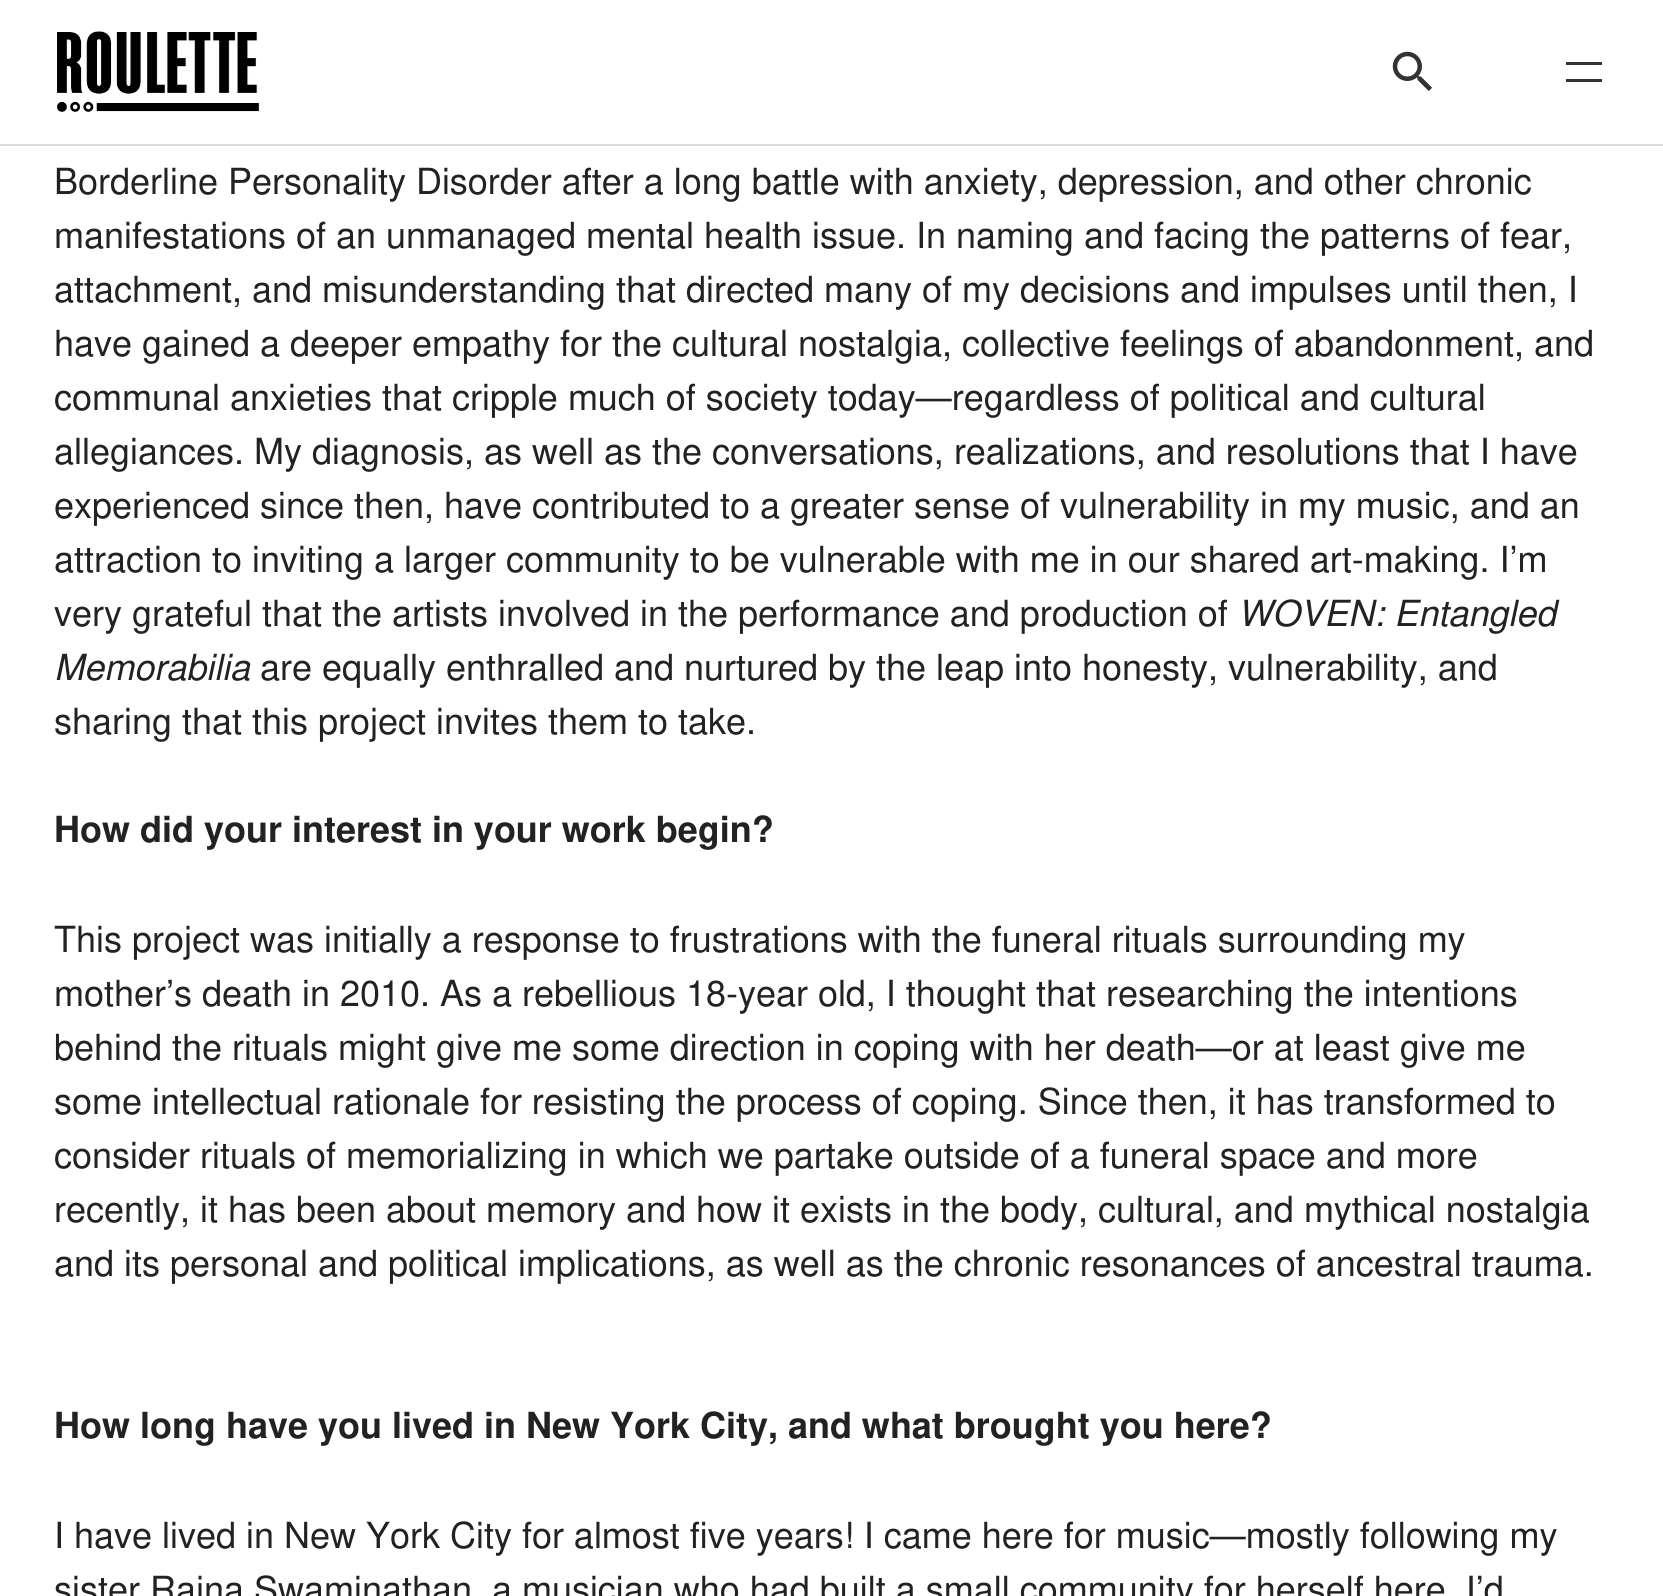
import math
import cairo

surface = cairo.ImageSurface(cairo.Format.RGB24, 1663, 1596)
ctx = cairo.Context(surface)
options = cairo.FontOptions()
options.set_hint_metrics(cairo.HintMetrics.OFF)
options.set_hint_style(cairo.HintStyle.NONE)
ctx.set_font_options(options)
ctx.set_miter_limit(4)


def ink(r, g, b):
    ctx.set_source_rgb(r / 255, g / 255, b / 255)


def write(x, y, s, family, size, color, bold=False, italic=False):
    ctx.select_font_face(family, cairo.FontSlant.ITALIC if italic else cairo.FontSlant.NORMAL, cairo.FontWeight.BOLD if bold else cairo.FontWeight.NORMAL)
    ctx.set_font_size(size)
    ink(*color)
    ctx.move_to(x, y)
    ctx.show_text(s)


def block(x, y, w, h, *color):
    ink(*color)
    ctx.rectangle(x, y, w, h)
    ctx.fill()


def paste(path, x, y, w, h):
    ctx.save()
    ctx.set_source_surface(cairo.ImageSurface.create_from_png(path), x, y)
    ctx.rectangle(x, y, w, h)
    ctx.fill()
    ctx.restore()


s1 = dict(family="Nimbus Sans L", size=36, color=(34, 34, 34))
s2 = dict(family="Nimbus Sans L", size=36, color=(34, 34, 34), italic=True)
s3 = dict(family="Nimbus Sans L", size=36, color=(34, 34, 34), bold=True)

ink(255, 255, 255)
ctx.paint()
block(0, 144, 1663, 2, 218, 218, 218)
paste("pic1.png", 57, 31, 203, 81)
paste("pic2.png", 1392, 51, 40, 40)
block(1566, 62, 36, 3, 51, 51, 51)
block(1566, 79, 36, 3, 51, 51, 51)
write(54, 194, "Borderline Personality Disorder after a long battle with anxiety, depression, and other chronic", **s1)
write(54, 248, "manifestations of an unmanaged mental health issue. In naming and facing the patterns of fear,", **s1)
write(54, 302, "attachment, and misunderstanding that directed many of my decisions and impulses until then, I", **s1)
write(54, 356, "have gained a deeper empathy for the cultural nostalgia, collective feelings of abandonment, and", **s1)
write(54, 410, "communal anxieties that cripple much of society today—regardless of political and cultural", **s1)
write(54, 464, "allegiances. My diagnosis, as well as the conversations, realizations, and resolutions that I have", **s1)
write(54, 518, "experienced since then, have contributed to a greater sense of vulnerability in my music, and an", **s1)
write(54, 572, "attraction to inviting a larger community to be vulnerable with me in our shared art-making. I’m", **s1)
write(54, 626, "very grateful that the artists involved in the performance and production of", **s1)
write(1238, 626, "WOVEN: Entangled", **s2)
write(54, 680, "Memorabilia", **s2)
write(260, 680, "are equally enthralled and nurtured by the leap into honesty, vulnerability, and", **s1)
write(54, 734, "sharing that this project invites them to take.", **s1)
write(54, 842, "How did your interest in your work begin?", **s3)
write(54, 952, "This project was initially a response to frustrations with the funeral rituals surrounding my", **s1)
write(54, 1006, "mother’s death in 2010. As a rebellious 18-year old, I thought that researching the intentions", **s1)
write(54, 1060, "behind the rituals might give me some direction in coping with her death—or at least give me", **s1)
write(54, 1114, "some intellectual rationale for resisting the process of coping. Since then, it has transformed to", **s1)
write(54, 1168, "consider rituals of memorializing in which we partake outside of a funeral space and more", **s1)
write(54, 1222, "recently, it has been about memory and how it exists in the body, cultural, and mythical nostalgia", **s1)
write(54, 1276, "and its personal and political implications, as well as the chronic resonances of ancestral trauma.", **s1)
write(54, 1438, "How long have you lived in New York City, and what brought you here?", **s3)
write(54, 1548, "I have lived in New York City for almost five years! I came here for music—mostly following my", **s1)
write(54, 1602, "sister Rajna Swaminathan, a musician who had built a small community for herself here. I’d", **s1)
surface.write_to_png("screenshot.png")
